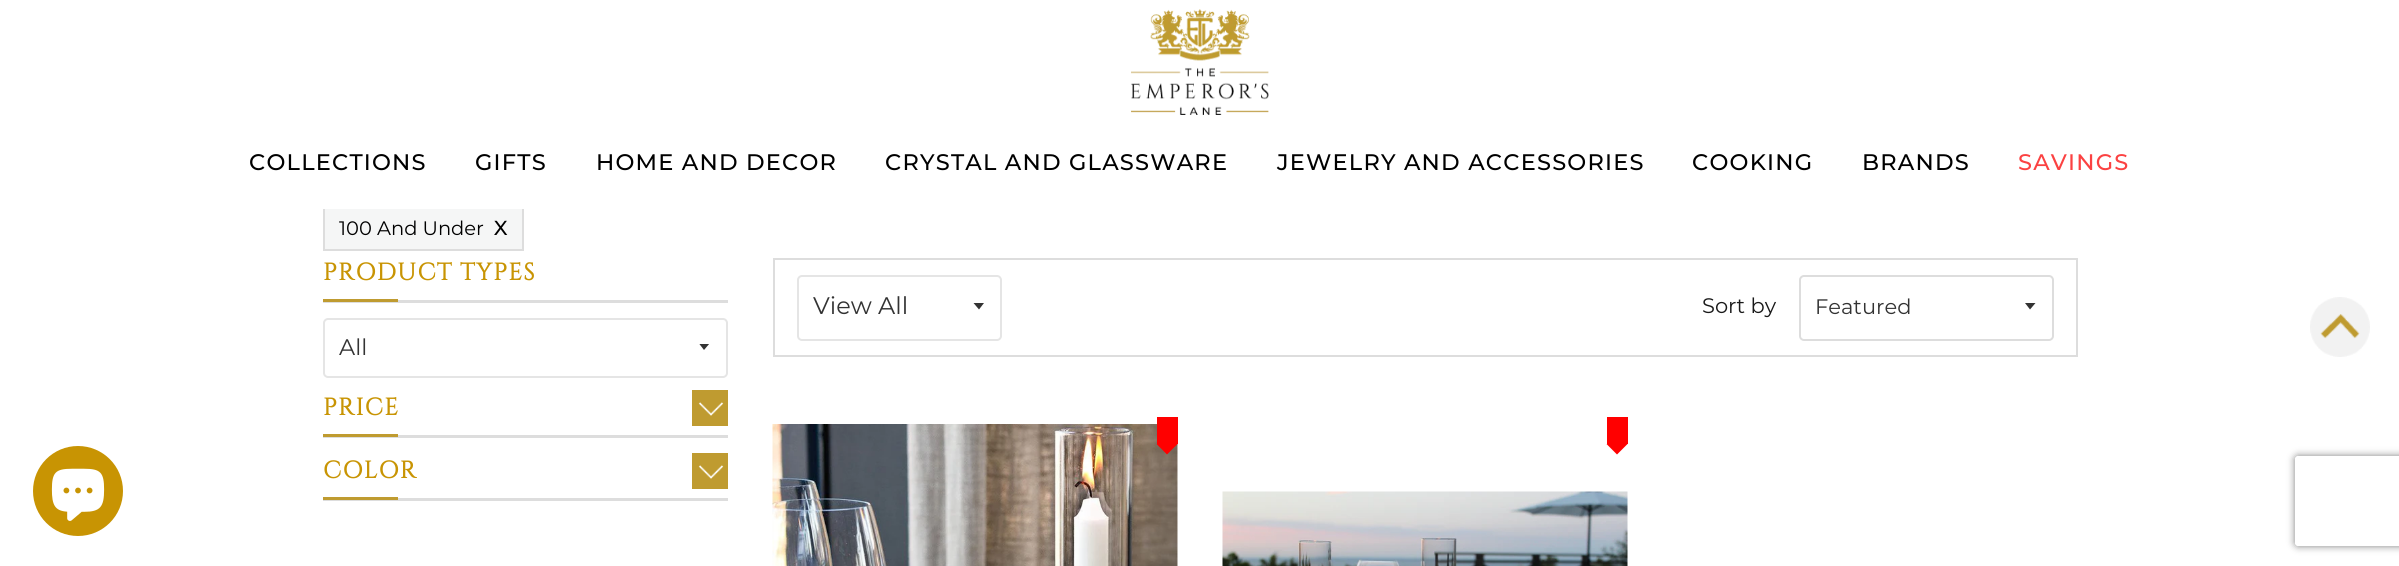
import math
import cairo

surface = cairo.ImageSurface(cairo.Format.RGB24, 2399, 566)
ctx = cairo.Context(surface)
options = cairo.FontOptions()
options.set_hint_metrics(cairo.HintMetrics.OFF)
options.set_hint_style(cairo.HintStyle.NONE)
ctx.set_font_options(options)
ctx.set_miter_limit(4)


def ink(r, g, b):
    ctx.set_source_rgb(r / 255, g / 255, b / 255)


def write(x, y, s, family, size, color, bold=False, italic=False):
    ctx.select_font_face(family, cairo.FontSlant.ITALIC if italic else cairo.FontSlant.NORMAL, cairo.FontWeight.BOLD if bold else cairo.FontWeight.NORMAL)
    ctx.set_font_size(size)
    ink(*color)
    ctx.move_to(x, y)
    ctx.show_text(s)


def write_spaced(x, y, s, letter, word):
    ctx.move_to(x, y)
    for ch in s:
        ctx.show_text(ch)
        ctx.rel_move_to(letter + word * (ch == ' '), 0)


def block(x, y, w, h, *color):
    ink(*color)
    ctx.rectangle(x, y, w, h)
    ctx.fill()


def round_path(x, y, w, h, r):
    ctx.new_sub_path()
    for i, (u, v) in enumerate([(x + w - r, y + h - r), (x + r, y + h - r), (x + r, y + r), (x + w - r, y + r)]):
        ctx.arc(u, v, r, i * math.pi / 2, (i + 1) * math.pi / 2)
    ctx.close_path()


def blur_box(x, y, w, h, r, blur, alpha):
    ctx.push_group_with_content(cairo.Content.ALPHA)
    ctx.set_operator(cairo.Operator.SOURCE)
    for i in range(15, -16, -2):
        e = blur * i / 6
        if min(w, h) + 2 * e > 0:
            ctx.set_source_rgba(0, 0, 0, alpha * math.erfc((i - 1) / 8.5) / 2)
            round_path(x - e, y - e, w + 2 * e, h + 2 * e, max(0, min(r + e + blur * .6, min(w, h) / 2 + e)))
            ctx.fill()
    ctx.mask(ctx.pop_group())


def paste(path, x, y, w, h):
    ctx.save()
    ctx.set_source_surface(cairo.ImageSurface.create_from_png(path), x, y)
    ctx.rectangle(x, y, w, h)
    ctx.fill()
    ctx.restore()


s1 = dict(family="Montserrat", size=19.5, color=(0, 0, 0))
s2 = dict(family="Montserrat", size=19.5, color=(0, 0, 0), bold=True)
s3 = dict(family="Montserrat", size=22.5, color=(51, 51, 51))
s4 = dict(family="Montserrat", size=24, color=(51, 51, 51))
s5 = dict(family="Montserrat", size=21, color=(25, 25, 25))
s6 = dict(family="Montserrat", size=21, color=(51, 51, 51))

ink(255, 255, 255)
ctx.paint()
block(325, 209, 197, 40, 245, 246, 246)
ctx.rectangle(324, 207, 199, 43)
ink(221, 221, 221)
ctx.stroke()
block(323, 206, 201, 3, 255, 255, 255)
paste("pic1.png", 1131, 9, 138, 106)
ctx.select_font_face("Montserrat Medium")
ctx.set_font_size(22.5)
ink(0, 0, 0)
write_spaced(249, 170, "COLLECTIONS", 1.2, 0)
write_spaced(475, 170, "GIFTS", 1.2, 0)
write_spaced(596, 170, "HOME AND DECOR", 1.2, 0)
write_spaced(885, 170, "CRYSTAL AND GLASSWARE", 1.2, 0)
write_spaced(1277, 170, "JEWELRY AND ACCESSORIES", 1.2, 0)
write_spaced(1692, 170, "COOKING", 1.2, 0)
write_spaced(1862, 170, "BRANDS", 1.2, 0)
ink(251, 66, 66)
write_spaced(2018, 170, "SAVINGS", 1.2, 0)
write(339, 235, "100 And Under", **s1)
write(494, 235, "X", **s2)
block(323, 300, 405, 3, 221, 221, 221)
ctx.select_font_face("Cinzel", cairo.FontSlant.NORMAL, cairo.FontWeight.BOLD)
ctx.set_font_size(24)
ink(200, 148, 3)
write_spaced(323, 280, "PRODUCT TYPES", 1.2, 0)
block(323, 299, 75, 3, 191, 155, 48)
ctx.save()
ctx.rectangle(699, 344, 12, 7)
ctx.clip()
ink(51, 51, 51)
ctx.new_path()
ctx.move_to(699, 343.5)
ctx.line_to(704, 350)
ctx.line_to(709.5, 343.5)
ctx.close_path()
ctx.fill()
ctx.restore()
round_path(324, 319, 403, 58, 4)
ink(229, 229, 229)
ctx.stroke()
write(339, 355, "All", **s3)
block(323, 435, 405, 3, 221, 221, 221)
ctx.select_font_face("Cinzel", cairo.FontSlant.NORMAL, cairo.FontWeight.BOLD)
ctx.set_font_size(24)
ink(200, 148, 3)
write_spaced(323, 415, "PRICE", 1.2, 0)
block(692, 390, 36, 36, 191, 155, 48)
paste("pic2.png", 698, 402, 26, 14)
block(323, 434, 75, 3, 191, 155, 48)
block(323, 498, 405, 3, 221, 221, 221)
ink(200, 148, 3)
write_spaced(323, 478, "COLOR", 1.2, 0)
block(692, 453, 36, 36, 191, 155, 48)
paste("pic2.png", 698, 465, 26, 14)
block(323, 497, 75, 3, 191, 155, 48)
ctx.rectangle(774, 259, 1303, 97)
ink(221, 221, 221)
ctx.stroke()
ink(51, 51, 51)
ctx.new_path()
ctx.move_to(973.5, 303)
ctx.line_to(979, 309.5)
ctx.line_to(984, 303)
ctx.close_path()
ctx.fill()
round_path(798, 276, 203, 64, 4)
ink(229, 229, 229)
ctx.stroke()
write(813, 314, "View All", **s4)
write(1702, 313, "Sort by", **s5)
ink(51, 51, 51)
ctx.new_path()
ctx.move_to(2025, 303)
ctx.line_to(2030, 309.5)
ctx.line_to(2035.5, 303)
ctx.close_path()
ctx.fill()
round_path(1800, 276, 253, 64, 4)
ink(221, 221, 221)
ctx.stroke()
write(1815, 314, "Featured", **s6)
paste("pic3.png", 772, 424, 406, 142)
block(1157, 417, 21, 27, 255, 0, 0)
ctx.new_path()
ctx.move_to(1156.5, 444)
ctx.line_to(1177.5, 444)
ctx.line_to(1167, 454.5)
ctx.close_path()
ctx.fill()
block(1607, 417, 21, 27, 255, 0, 0)
ctx.new_path()
ctx.move_to(1606.5, 444)
ctx.line_to(1627.5, 444)
ctx.line_to(1617, 454.5)
ctx.close_path()
ctx.fill()
paste("pic4.png", 1222, 491, 406, 75)
paste("pic5.png", 2310, 297, 60, 60)
ink(200, 148, 3)
ctx.arc(78, 491, 45, 0, 2 * math.pi)
ctx.fill()
paste("pic6.png", 51, 468, 54, 53)
ctx.save()
ctx.set_fill_rule(cairo.FillRule.EVEN_ODD)
ctx.new_path()
ctx.move_to(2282, 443)
ctx.line_to(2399, 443)
ctx.line_to(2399, 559)
ctx.line_to(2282, 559)
ctx.close_path()
ctx.move_to(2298, 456)
ctx.line_to(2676, 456)
ctx.curve_to(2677.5, 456, 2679, 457.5, 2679, 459)
ctx.line_to(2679, 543)
ctx.curve_to(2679, 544.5, 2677.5, 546, 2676, 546)
ctx.line_to(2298, 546)
ctx.curve_to(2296.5, 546, 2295, 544.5, 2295, 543)
ctx.line_to(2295, 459)
ctx.curve_to(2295, 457.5, 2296.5, 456, 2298, 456)
ctx.close_path()
ctx.clip()
ink(128, 128, 128)
blur_box(2295, 456, 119, 90, 3, 4, 1)
ctx.restore()
surface.write_to_png("screenshot.png")
